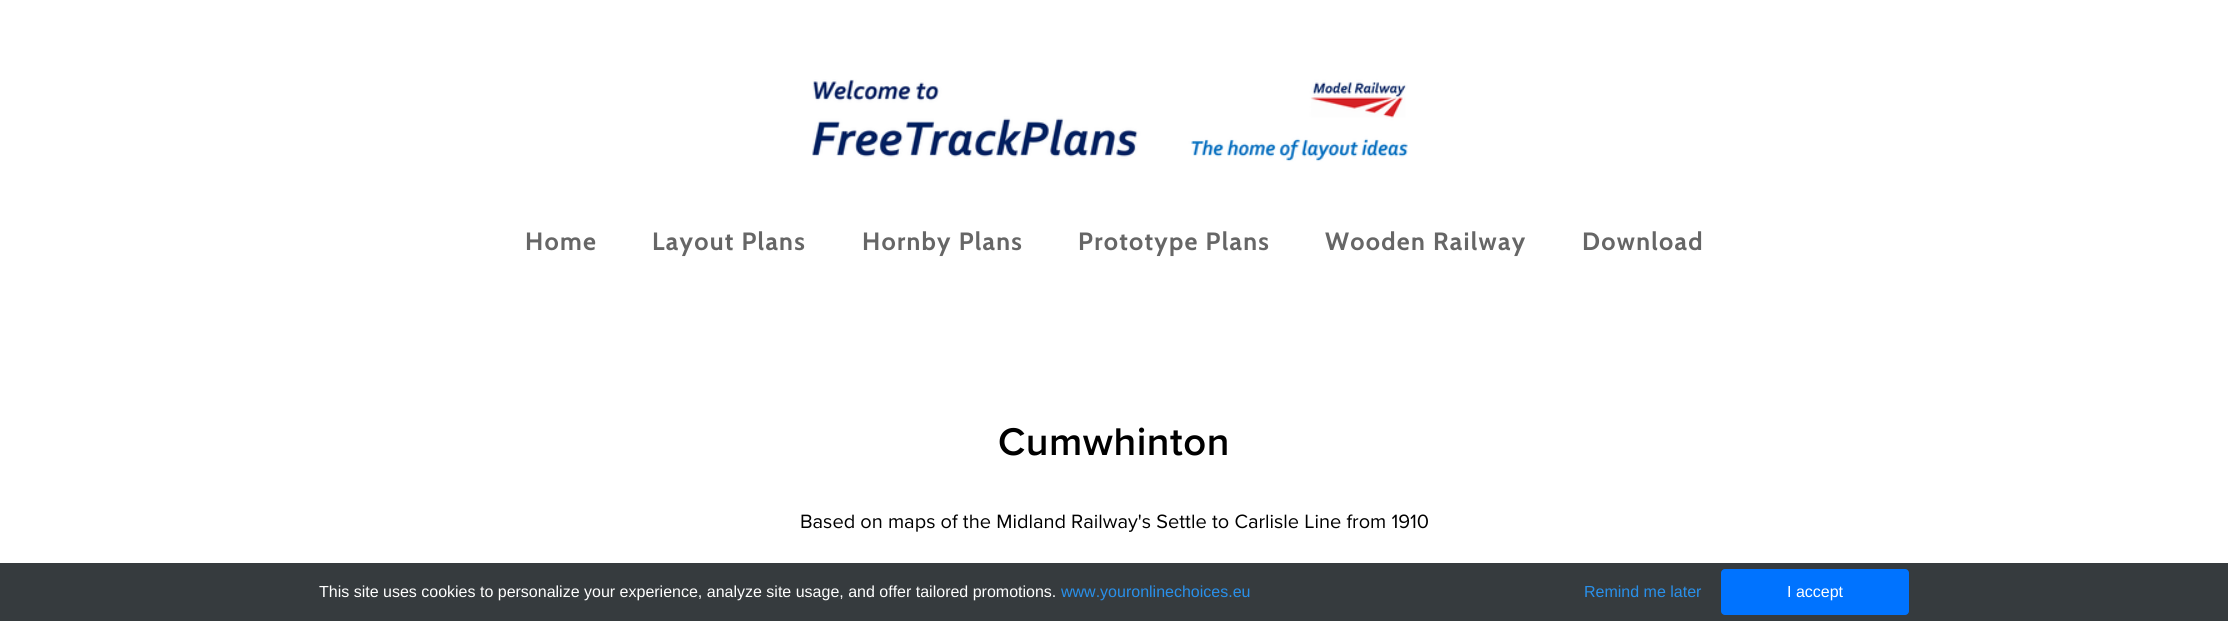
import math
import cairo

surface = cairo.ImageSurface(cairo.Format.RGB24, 2228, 621)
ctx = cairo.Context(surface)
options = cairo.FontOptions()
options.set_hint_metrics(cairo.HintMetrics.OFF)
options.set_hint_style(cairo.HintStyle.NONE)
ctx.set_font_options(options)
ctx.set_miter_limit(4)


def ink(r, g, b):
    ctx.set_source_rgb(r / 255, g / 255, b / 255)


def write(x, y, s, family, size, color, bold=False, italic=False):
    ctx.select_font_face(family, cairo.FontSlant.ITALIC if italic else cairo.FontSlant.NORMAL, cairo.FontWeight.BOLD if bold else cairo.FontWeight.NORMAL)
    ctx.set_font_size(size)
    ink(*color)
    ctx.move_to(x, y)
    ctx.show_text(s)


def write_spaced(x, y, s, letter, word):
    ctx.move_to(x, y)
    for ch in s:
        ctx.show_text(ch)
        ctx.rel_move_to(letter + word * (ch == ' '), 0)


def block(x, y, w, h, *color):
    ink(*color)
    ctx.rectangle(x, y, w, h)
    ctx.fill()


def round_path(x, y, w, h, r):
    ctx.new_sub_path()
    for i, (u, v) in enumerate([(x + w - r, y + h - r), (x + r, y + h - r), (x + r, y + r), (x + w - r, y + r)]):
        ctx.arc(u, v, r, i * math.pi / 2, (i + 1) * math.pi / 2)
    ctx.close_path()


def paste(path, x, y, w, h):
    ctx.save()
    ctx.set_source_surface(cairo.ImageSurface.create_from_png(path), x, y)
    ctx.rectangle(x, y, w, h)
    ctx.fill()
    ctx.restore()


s1 = dict(family="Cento", size=20, color=(0, 0, 0))
s2 = dict(family="Liberation Sans", size=16, color=(255, 255, 255))
s3 = dict(family="Liberation Sans", size=16, color=(41, 144, 234))

ink(255, 255, 255)
ctx.paint()
paste("pic1.png", 812, 79, 596, 83)
ctx.select_font_face("Cabin", cairo.FontSlant.NORMAL, cairo.FontWeight.BOLD)
ctx.set_font_size(25)
ink(102, 102, 102)
write_spaced(525, 250, "Home", 1.25, 0)
write_spaced(652, 250, "Layout Plans", 1.25, 0)
write_spaced(862, 250, "Hornby Plans", 1.25, 0)
write_spaced(1078, 250, "Prototype Plans", 1.25, 0)
write_spaced(1325, 250, "Wooden Railway", 1.25, 0)
write_spaced(1582, 250, "Download", 1.25, 0)
ctx.select_font_face("Cento", cairo.FontSlant.NORMAL, cairo.FontWeight.BOLD)
ctx.set_font_size(40)
ink(0, 0, 0)
write_spaced(998, 455, "Cumwhinton", 0.5, 0)
write(800, 528, "Based on maps of the Midland Railway's Settle to Carlisle Line from 1910", **s1)
block(0, 563, 2228, 58, 54, 59, 62)
write(319, 597, "This site uses cookies to personalize your experience, analyze site usage, and offer tailored promotions.", **s2)
write(1061, 597, "www.youronlinechoices.eu", **s3)
write(1584, 597, "Remind me later", **s3)
ink(0, 115, 255)
round_path(1721, 569, 188, 46, 4)
ctx.fill()
write(1787, 597, "I accept", **s2)
surface.write_to_png("screenshot.png")
